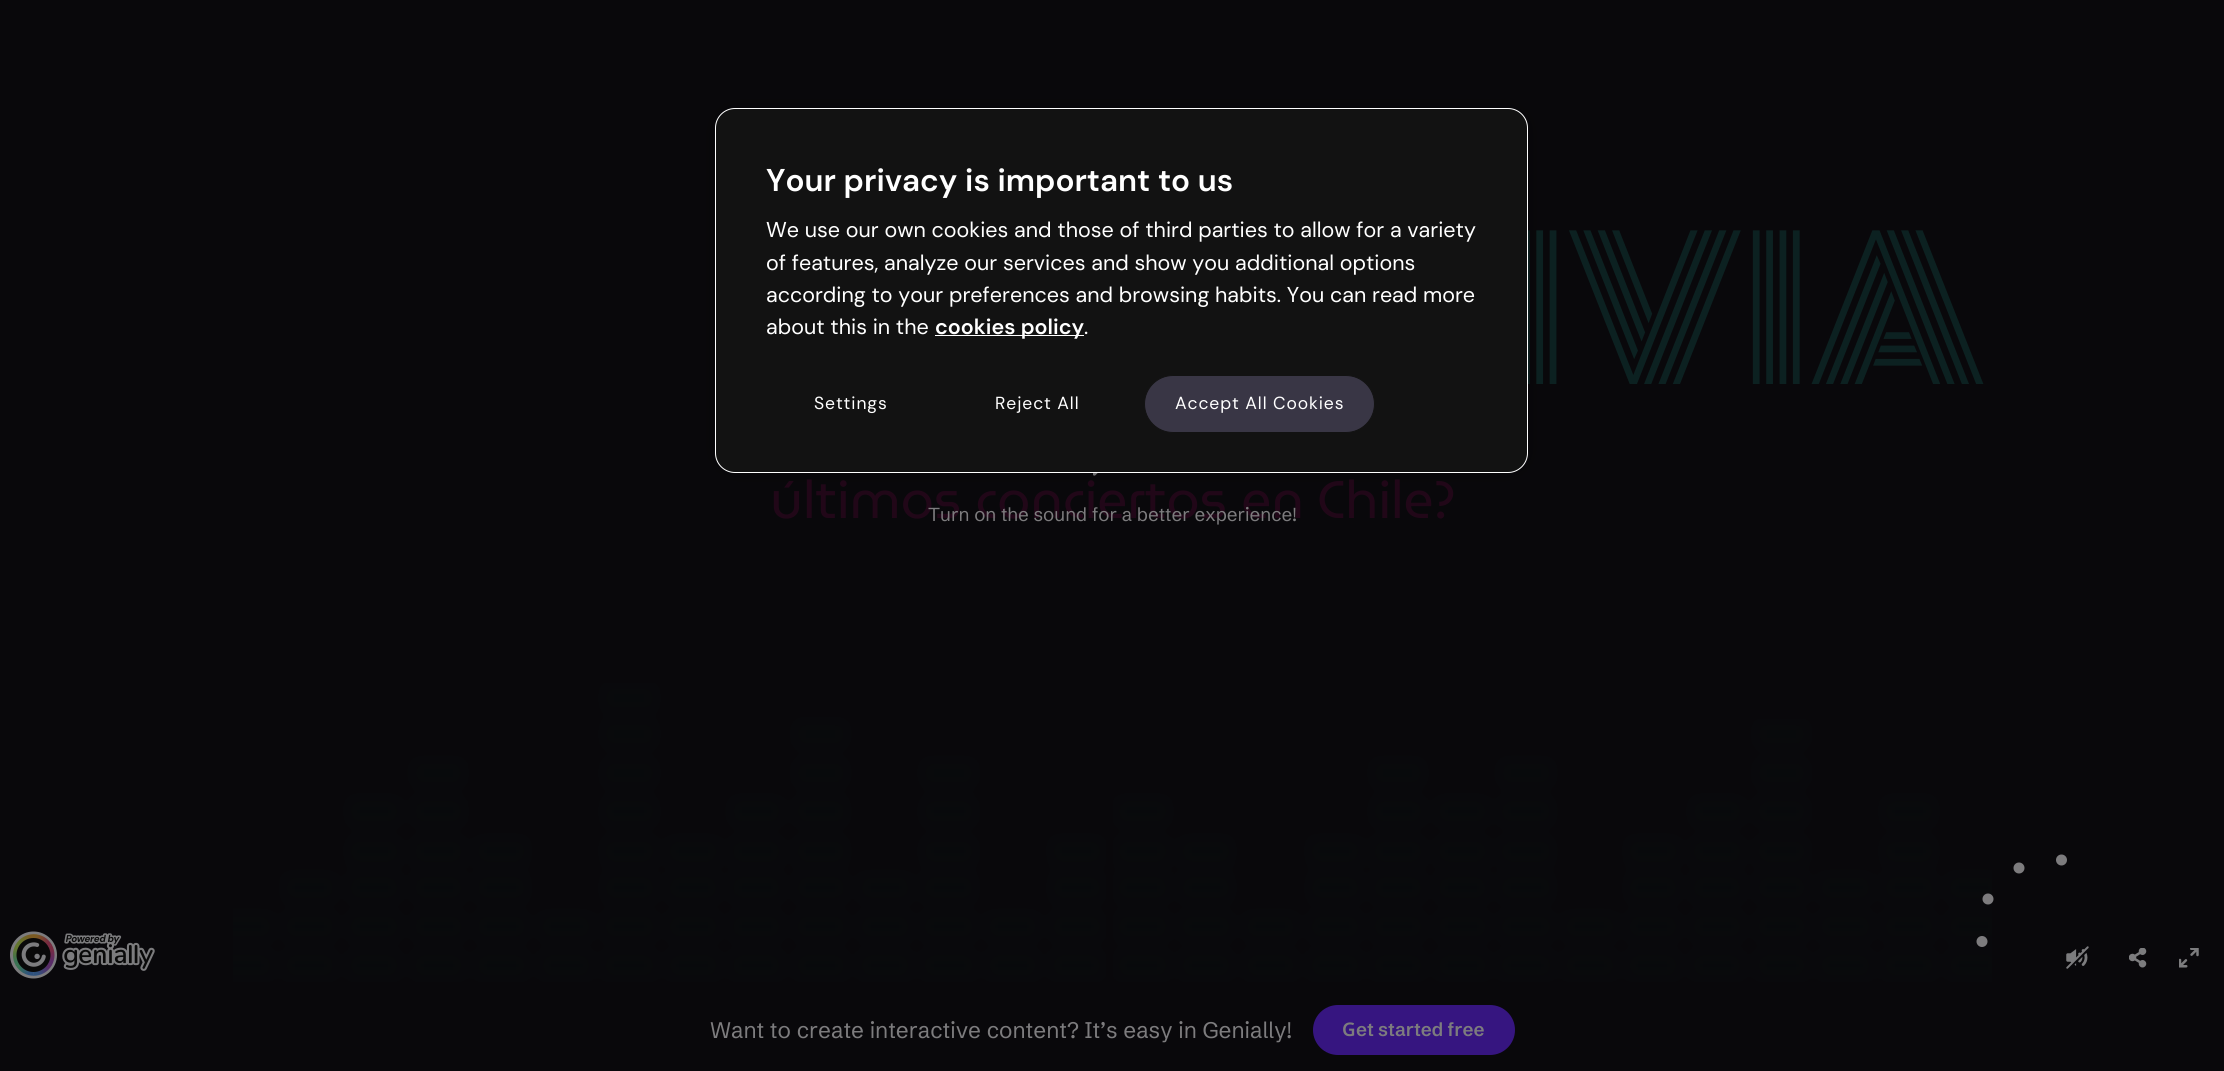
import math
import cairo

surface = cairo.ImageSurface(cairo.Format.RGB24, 2224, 1071)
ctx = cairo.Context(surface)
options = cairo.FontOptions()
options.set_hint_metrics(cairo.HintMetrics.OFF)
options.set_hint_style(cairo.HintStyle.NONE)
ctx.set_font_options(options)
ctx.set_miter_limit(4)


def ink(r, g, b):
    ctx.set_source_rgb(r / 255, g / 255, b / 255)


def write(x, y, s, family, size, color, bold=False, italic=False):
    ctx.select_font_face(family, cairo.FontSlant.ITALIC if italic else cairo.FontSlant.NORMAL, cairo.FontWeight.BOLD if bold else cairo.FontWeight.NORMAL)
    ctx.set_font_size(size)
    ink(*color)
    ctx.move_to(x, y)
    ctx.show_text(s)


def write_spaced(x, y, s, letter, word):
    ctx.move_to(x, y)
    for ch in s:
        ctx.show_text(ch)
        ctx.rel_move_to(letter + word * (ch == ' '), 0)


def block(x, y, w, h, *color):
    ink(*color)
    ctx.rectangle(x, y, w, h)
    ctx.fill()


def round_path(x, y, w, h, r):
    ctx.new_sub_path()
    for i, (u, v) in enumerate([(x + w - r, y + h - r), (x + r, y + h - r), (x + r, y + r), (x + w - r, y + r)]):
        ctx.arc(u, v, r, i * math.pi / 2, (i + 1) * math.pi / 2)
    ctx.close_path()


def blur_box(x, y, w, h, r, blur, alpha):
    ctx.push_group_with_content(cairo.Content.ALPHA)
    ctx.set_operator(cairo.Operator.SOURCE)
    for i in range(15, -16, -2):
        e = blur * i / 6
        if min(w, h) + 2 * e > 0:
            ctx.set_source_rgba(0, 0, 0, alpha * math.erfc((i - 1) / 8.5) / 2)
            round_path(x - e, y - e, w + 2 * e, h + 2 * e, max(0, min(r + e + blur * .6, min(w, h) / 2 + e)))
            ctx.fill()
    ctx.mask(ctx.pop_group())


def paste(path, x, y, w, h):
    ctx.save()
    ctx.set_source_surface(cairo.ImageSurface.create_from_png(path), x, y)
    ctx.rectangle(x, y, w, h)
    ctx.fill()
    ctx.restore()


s1 = dict(family="Monoton", size=190, color=(12, 33, 33))
s2 = dict(family="DM Sans SemiBold", size=31.5, color=(255, 255, 255))
s3 = dict(family="DM Sans", size=21.5, color=(255, 255, 255))
s4 = dict(family="DM Sans SemiBold", size=21.5, color=(255, 255, 255))
s5 = dict(family="MuseoModerno", size=52.75, color=(33, 7, 24))
s6 = dict(family="Schibsted Grotesk", size=18.75, color=(125, 124, 126))
s7 = dict(family="Schibsted Grotesk", size=22.5, color=(125, 124, 126))
s8 = dict(family="Noto Sans SemiBold", size=18.75, color=(125, 124, 126))
s9 = dict(family="Schibsted Grotesk SemiBold", size=18.75, color=(125, 124, 126))

ink(9, 8, 11)
ctx.paint()
paste("pic3.png", 1093, 473, 5, 3)
ink(0, 0, 0)
blur_box(715, 108, 813, 365, 20, 11, 0.2)
write(1501, 384, "IVIA", **s1)
ink(18, 18, 18)
round_path(715.5, 108.5, 812, 364, 19.5)
ctx.fill_preserve()
ink(255, 255, 255)
ctx.set_line_width(1)
ctx.stroke()
write(766, 191, "Your privacy is important to us", **s2)
write(766, 237, "We use our own cookies and those of third parties to allow for a variety", **s3)
write(766, 270, "of features, analyze our services and show you additional options", **s3)
write(766, 302, "according to your preferences and browsing habits. You can read more", **s3)
write(766, 334, "about this in the", **s3)
block(935, 335, 149, 1, 255, 255, 255)
write(935, 334, "cookies policy", **s4)
write(1084, 334, ".", **s3)
ctx.set_font_size(17.5)
write_spaced(814, 409, "Settings", 0.9, 0)
write_spaced(995, 409, "Reject All", 0.9, 0)
ink(57, 54, 69)
round_path(1144.5, 375.5, 230, 57, 28.5)
ctx.fill_preserve()
ink(18, 18, 18)
ctx.stroke()
ink(255, 255, 255)
write_spaced(1175, 409, "Accept All Cookies", 0.9, 0)
write(770, 518, "últimos conciertos en Chile?", **s5)
paste("pic1.png", 233, 683, 873, 299)
paste("pic2.png", 1113, 719, 879, 263)
write(928, 521, "Turn on the sound for a better experience!", **s6)
paste("pic4.png", 10, 931, 145, 48)
ctx.arc(1982, 941.5, 5.5, 0, 2 * math.pi)
ctx.fill()
ctx.arc(1988, 899, 5.5, 0, 2 * math.pi)
ctx.fill()
ctx.arc(2019, 868, 5.5, 0, 2 * math.pi)
ctx.fill()
ctx.arc(2061.5, 860, 5.5, 0, 2 * math.pi)
ctx.fill()
paste("pic5.png", 2066, 946, 23, 23)
paste("pic6.png", 2129, 948, 18, 20)
paste("pic7.png", 2179, 948, 20, 20)
write(710, 1038, "Want to create interactive content? It’s easy in Genially!", **s7)
ink(54, 21, 128)
round_path(1313, 1005, 202, 50, 25)
ctx.fill()
write(1342, 1036, "G", **s8)
write(1356, 1036, "et started free", **s9)
surface.write_to_png("screenshot.png")
